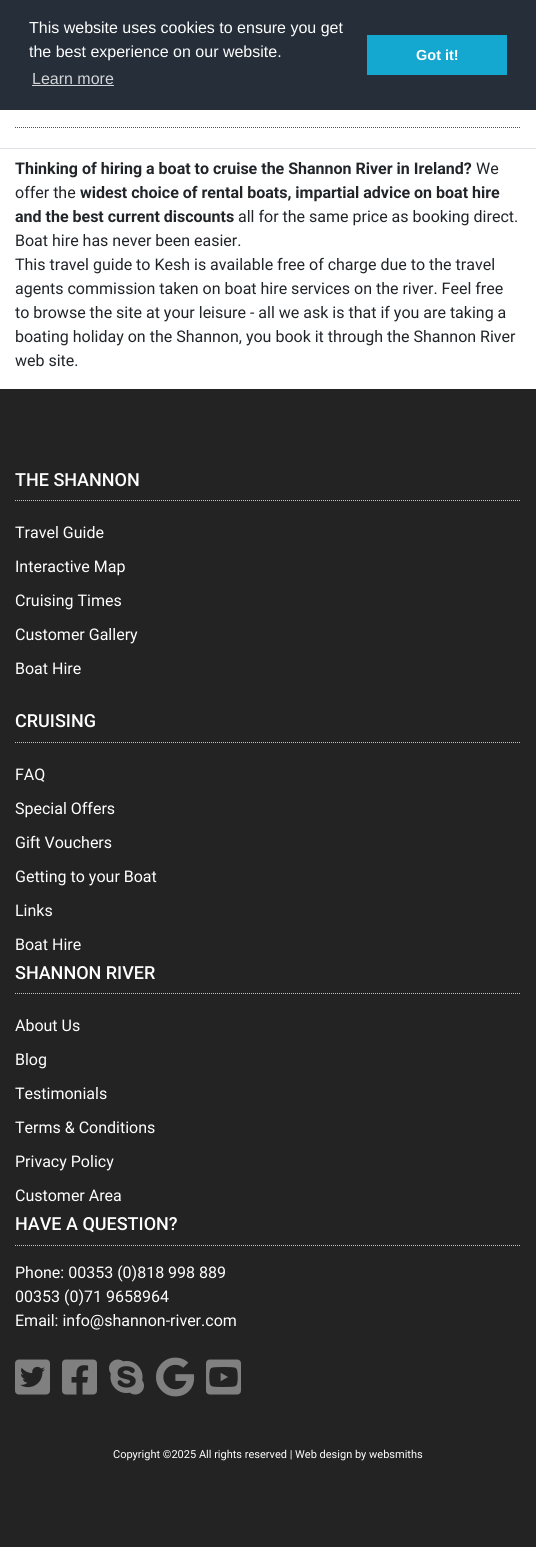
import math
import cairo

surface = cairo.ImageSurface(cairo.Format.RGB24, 536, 1547)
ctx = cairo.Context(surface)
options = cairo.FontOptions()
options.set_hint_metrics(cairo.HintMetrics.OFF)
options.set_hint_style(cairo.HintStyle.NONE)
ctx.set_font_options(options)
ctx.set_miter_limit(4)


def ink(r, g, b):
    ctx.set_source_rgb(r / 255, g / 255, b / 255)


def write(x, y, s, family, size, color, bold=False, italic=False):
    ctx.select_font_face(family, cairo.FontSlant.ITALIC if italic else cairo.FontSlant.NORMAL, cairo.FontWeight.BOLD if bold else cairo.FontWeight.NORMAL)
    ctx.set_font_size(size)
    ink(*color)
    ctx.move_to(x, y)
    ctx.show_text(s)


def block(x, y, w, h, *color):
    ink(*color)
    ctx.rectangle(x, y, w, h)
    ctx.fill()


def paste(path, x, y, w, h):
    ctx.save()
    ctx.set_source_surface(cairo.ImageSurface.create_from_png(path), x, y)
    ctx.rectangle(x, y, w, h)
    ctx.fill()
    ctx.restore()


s1 = dict(family="Liberation Sans", size=16, color=(255, 255, 255))
s2 = dict(family="Liberation Sans", size=16, color=(211, 213, 215))
s3 = dict(family="Liberation Sans", size=14.5, color=(255, 255, 255), bold=True)
s4 = dict(family="Roboto", size=16, color=(33, 37, 41), bold=True)
s5 = dict(family="Roboto", size=16, color=(33, 37, 41))
s6 = dict(family="Roboto Medium", size=18, color=(255, 255, 255))
s7 = dict(family="Roboto", size=16, color=(255, 255, 255))
s8 = dict(family="Roboto", size=11, color=(255, 255, 255))

ink(255, 255, 255)
ctx.paint()
block(0, 0, 536, 110, 37, 46, 57)
write(29, 33, "This website uses cookies to ensure you get", **s1)
write(29, 57, "the best experience on our website.", **s1)
write(32, 84, "Learn more", **s2)
block(32, 85, 82, 1, 211, 213, 215)
block(367, 35, 140, 40, 20, 167, 208)
write(416, 60, "Got it!", **s3)
ctx.new_path()
ctx.move_to(15, 127.5)
ctx.line_to(521, 127.5)
ink(38, 90, 136)
ctx.set_line_width(1)
ctx.set_dash([1, 1])
ctx.stroke()
block(0, 148, 536, 1, 222, 226, 230)
write(15, 174, "Thinking of hiring a boat to cruise the Shannon River in Ireland?", **s4)
write(476, 174, "We", **s5)
write(15, 198, "offer the", **s5)
write(80, 198, "widest choice of rental boats, impartial advice on boat hire", **s4)
write(15, 222, "and the best current discounts", **s4)
write(238, 222, "all for the same price as booking direct.", **s5)
write(15, 246, "Boat hire has never been easier.", **s5)
write(15, 270, "This travel guide to Kesh is available free of charge due to the travel", **s5)
write(15, 294, "agents commission taken on boat hire services on the river. Feel free", **s5)
write(15, 318, "to browse the site at your leisure - all we ask is that if you are taking a", **s5)
write(15, 342, "boating holiday on the Shannon, you book it through the Shannon River", **s5)
write(15, 366, "web site.", **s5)
block(0, 389, 536, 1158, 35, 35, 35)
ctx.new_path()
ctx.move_to(15, 500.5)
ctx.line_to(521, 500.5)
ink(194, 194, 194)
ctx.stroke()
write(15, 486, "THE SHANNON", **s6)
write(15, 538, "Travel Guide", **s7)
write(15, 572, "Interactive Map", **s7)
write(15, 606, "Cruising Times", **s7)
write(15, 640, "Customer Gallery", **s7)
write(15, 674, "Boat Hire", **s7)
ctx.new_path()
ctx.move_to(15, 742.5)
ctx.line_to(521, 742.5)
ink(194, 194, 194)
ctx.stroke()
write(15, 727, "CRUISING", **s6)
write(15, 780, "FAQ", **s7)
write(15, 814, "Special Offers", **s7)
write(15, 848, "Gift Vouchers", **s7)
write(15, 882, "Getting to your Boat", **s7)
write(15, 916, "Links", **s7)
write(15, 950, "Boat Hire", **s7)
ctx.new_path()
ctx.move_to(15, 993.5)
ctx.line_to(521, 993.5)
ink(194, 194, 194)
ctx.stroke()
write(15, 979, "SHANNON RIVER", **s6)
write(15, 1031, "About Us", **s7)
write(15, 1065, "Blog", **s7)
write(15, 1099, "Testimonials", **s7)
write(15, 1133, "Terms & Conditions", **s7)
write(15, 1167, "Privacy Policy", **s7)
write(15, 1201, "Customer Area", **s7)
ctx.new_path()
ctx.move_to(15, 1245.5)
ctx.line_to(521, 1245.5)
ink(194, 194, 194)
ctx.stroke()
write(15, 1230, "HAVE A QUESTION?", **s6)
write(15, 1278, "Phone: 00353 (0)818 998 889", **s7)
write(15, 1302, "00353 (0)71 9658964", **s7)
write(15, 1326, "Email: info@shannon-river.com", **s7)
paste("pic1.png", 15, 1359, 35, 36)
paste("pic2.png", 62, 1359, 35, 36)
paste("pic3.png", 109, 1359, 35, 36)
paste("pic4.png", 156, 1357, 39, 40)
paste("pic5.png", 206, 1359, 35, 36)
write(113, 1458, "Copyright ©2025 All rights reserved | Web design by websmiths", **s8)
surface.write_to_png("screenshot.png")
